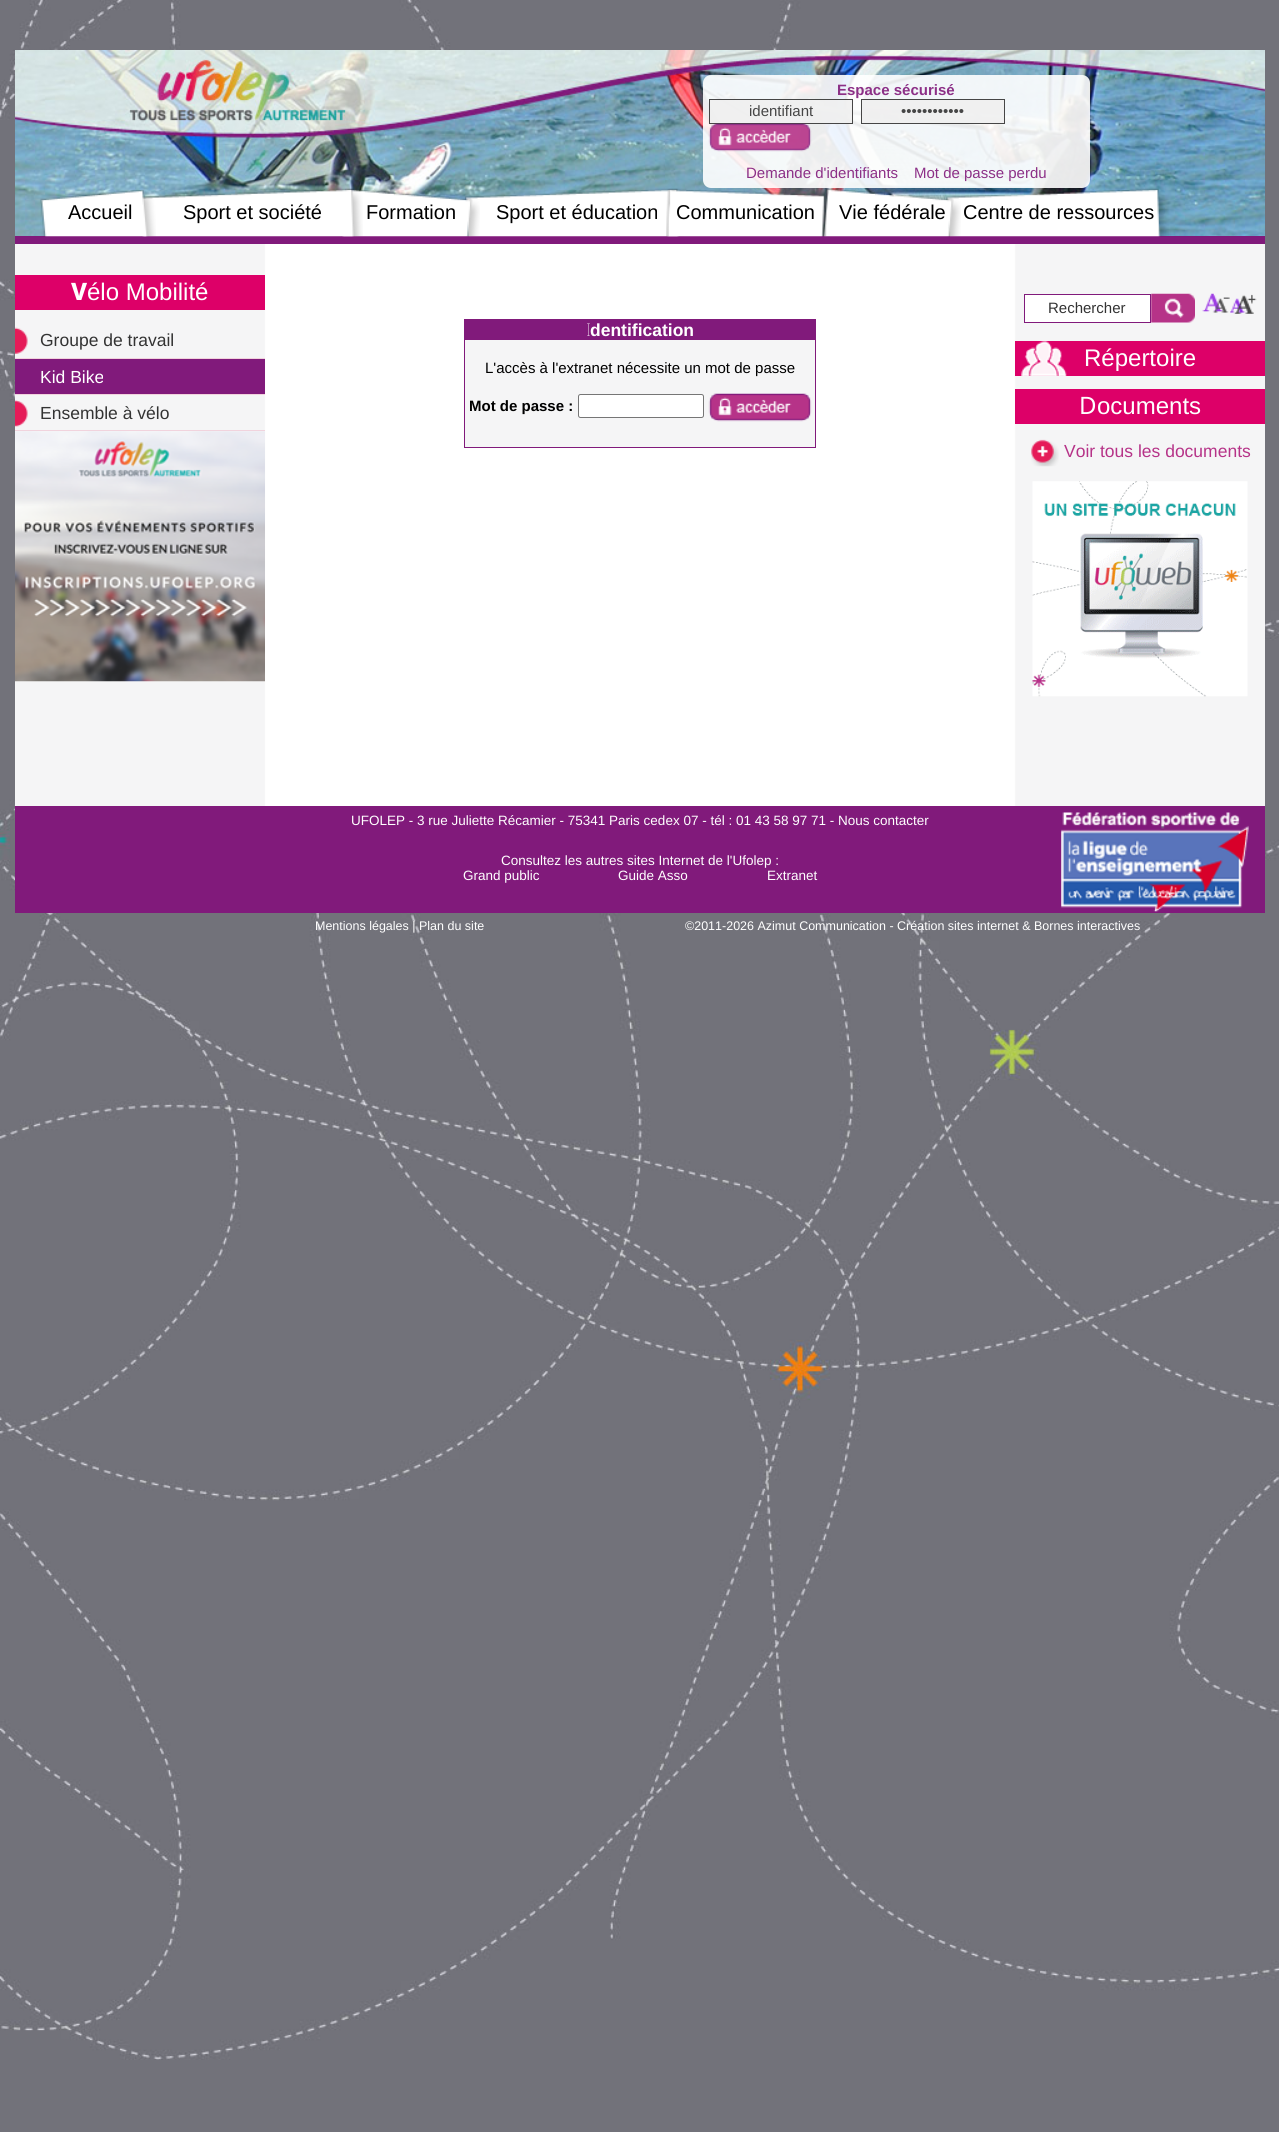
import math
import cairo

surface = cairo.ImageSurface(cairo.Format.RGB24, 1279, 2132)
ctx = cairo.Context(surface)
options = cairo.FontOptions()
options.set_hint_metrics(cairo.HintMetrics.OFF)
options.set_hint_style(cairo.HintStyle.NONE)
ctx.set_font_options(options)
ctx.set_miter_limit(4)


def ink(r, g, b):
    ctx.set_source_rgb(r / 255, g / 255, b / 255)


def write(x, y, s, family, size, color, bold=False, italic=False):
    ctx.select_font_face(family, cairo.FontSlant.ITALIC if italic else cairo.FontSlant.NORMAL, cairo.FontWeight.BOLD if bold else cairo.FontWeight.NORMAL)
    ctx.set_font_size(size)
    ink(*color)
    ctx.move_to(x, y)
    ctx.show_text(s)


def block(x, y, w, h, *color):
    ink(*color)
    ctx.rectangle(x, y, w, h)
    ctx.fill()


def round_path(x, y, w, h, r):
    ctx.new_sub_path()
    for i, (u, v) in enumerate([(x + w - r, y + h - r), (x + r, y + h - r), (x + r, y + r), (x + w - r, y + r)]):
        ctx.arc(u, v, r, i * math.pi / 2, (i + 1) * math.pi / 2)
    ctx.close_path()


def paste(path, x, y, w, h):
    ctx.save()
    ctx.set_source_surface(cairo.ImageSurface.create_from_png(path), x, y)
    ctx.rectangle(x, y, w, h)
    ctx.fill()
    ctx.restore()


s1 = dict(family="Liberation Sans", size=15, color=(140, 48, 135), bold=True)
s2 = dict(family="Liberation Sans", size=15, color=(70, 70, 70))
s3 = dict(family="Liberation Sans", size=15, color=(140, 48, 135))
s4 = dict(family="Liberation Sans", size=20, color=(0, 0, 0))
s5 = dict(family="Noto Sans ExtraBold", size=24, color=(255, 255, 255))
s6 = dict(family="Liberation Sans", size=24, color=(255, 255, 255))
s7 = dict(family="Liberation Sans", size=17.5, color=(51, 51, 51))
s8 = dict(family="Liberation Sans", size=17.5, color=(255, 255, 255))
s9 = dict(family="Noto Sans Thin", size=17.5, color=(255, 255, 255))
s10 = dict(family="Liberation Sans", size=17.5, color=(255, 255, 255), bold=True)
s11 = dict(family="Liberation Sans", size=15, color=(0, 0, 0))
s12 = dict(family="Liberation Sans", size=15, color=(0, 0, 0), bold=True)
s13 = dict(family="Liberation Sans", size=15, color=(51, 51, 51))
s14 = dict(family="Noto Sans", size=24, color=(255, 255, 255))
s15 = dict(family="Liberation Sans", size=17.5, color=(182, 51, 136))
s16 = dict(family="Liberation Sans", size=13.5, color=(255, 255, 255))
s17 = dict(family="Liberation Sans", size=12.5, color=(255, 255, 255))

ink(114, 114, 122)
ctx.paint()
paste("pic1.png", 0, 0, 1279, 2060)
paste("pic2.png", 15, 244, 1250, 562)
paste("pic3.png", 15, 50, 1250, 186)
block(15, 236, 1250, 8, 129, 26, 123)
ctx.set_source_rgba(1, 1, 1, 0.9)
round_path(703, 75, 387, 113, 8)
ctx.fill()
write(837, 95, "Espace sécurisé", **s1)
ctx.set_source_rgba(0.941, 0.941, 0.941, 0.9)
ctx.rectangle(709.5, 99.5, 143, 24)
ctx.fill_preserve()
ink(70, 70, 70)
ctx.set_line_width(1)
ctx.stroke()
write(749, 116, "identifiant", **s2)
ctx.set_source_rgba(0.941, 0.941, 0.941, 0.9)
ctx.rectangle(861.5, 99.5, 143, 24)
ctx.fill_preserve()
ink(70, 70, 70)
ctx.stroke()
write(901, 116, "••••••••••••", **s2)
paste("pic4.png", 708, 123, 104, 29)
write(746, 178, "Demande d'identifiants", **s3)
write(914, 178, "Mot de passe perdu", **s3)
paste("pic8.png", 465, 188, 219, 49)
paste("pic7.png", 341, 188, 139, 49)
paste("pic6.png", 141, 188, 222, 49)
paste("pic5.png", 40, 189, 116, 48)
write(68, 219, "Accueil", **s4)
write(183, 219, "Sport et société", **s4)
write(366, 219, "Formation", **s4)
write(496, 219, "Sport et éducation", **s4)
paste("pic11.png", 946, 188, 223, 49)
paste("pic10.png", 822, 188, 139, 49)
paste("pic9.png", 666, 188, 161, 49)
write(676, 219, "Communication", **s4)
write(839, 219, "Vie fédérale", **s4)
write(963, 219, "Centre de ressources", **s4)
block(15, 275, 250, 35, 221, 0, 104)
write(71, 300, "V", **s5)
write(87, 300, "élo Mobilité", **s6)
paste("pic12.png", 15, 327, 13, 27)
block(15, 358, 250, 1, 241, 211, 221)
write(40, 346, "Groupe de travail", **s7)
block(15, 359, 250, 35, 129, 26, 123)
block(15, 394, 250, 1, 241, 211, 221)
write(40, 383, "Kid Bike", **s8)
paste("pic13.png", 15, 400, 13, 27)
block(15, 430, 250, 1, 241, 211, 221)
write(40, 419, "Ensemble à vélo", **s7)
paste("pic14.png", 15, 431, 250, 251)
block(465, 340, 350, 107, 245, 245, 246)
ctx.rectangle(464.5, 319.5, 351, 128)
ink(129, 26, 123)
ctx.stroke()
block(465, 320, 350, 20, 129, 26, 123)
write(586, 336, "I", **s9)
write(590, 336, "dentification", **s10)
write(485, 373, "L'accès à l'extranet nécessite un mot de passe", **s11)
write(469, 411, "Mot de passe :", **s12)
ink(255, 255, 255)
round_path(578.5, 394.5, 125, 23, 2)
ctx.fill_preserve()
ink(118, 118, 118)
ctx.stroke()
paste("pic15.png", 708, 393, 104, 29)
ink(255, 255, 255)
ctx.rectangle(1024.5, 294.5, 126, 28)
ctx.fill_preserve()
ink(129, 26, 123)
ctx.stroke()
write(1048, 313, "Rechercher", **s13)
paste("pic16.png", 1151, 293, 44, 30)
paste("pic17.png", 1202, 293, 28, 20)
paste("pic18.png", 1230, 294, 27, 20)
block(1015, 341, 250, 35, 221, 0, 104)
paste("pic19.png", 1021, 341, 46, 35)
write(1084, 366, "Répertoire", **s6)
block(1015, 389, 250, 35, 221, 0, 104)
write(1079, 414, "D", **s14)
write(1097, 414, "ocuments", **s6)
paste("pic20.png", 1031, 439, 28, 28)
write(1064, 457, "Voir tous les documents", **s15)
paste("pic21.png", 1032, 481, 216, 216)
block(15, 806, 1250, 107, 129, 26, 123)
write(351, 825, "UFOLEP - 3 rue Juliette Récamier - 75341 Paris cedex 07 - tél : 01 43 58 97 71 - Nous contacter", **s16)
paste("pic22.png", 1061, 812, 188, 100)
write(501, 865, "Consultez les autres sites Internet de l'Ufolep :", **s16)
write(463, 880, "Grand public", **s16)
write(618, 880, "Guide Asso", **s16)
write(767, 880, "Extranet", **s16)
write(315, 930, "Mentions légales | Plan du site", **s17)
write(685, 930, "©2011-2026 Azimut Communication - Création sites internet & Bornes interactives", **s17)
surface.write_to_png("screenshot.png")
